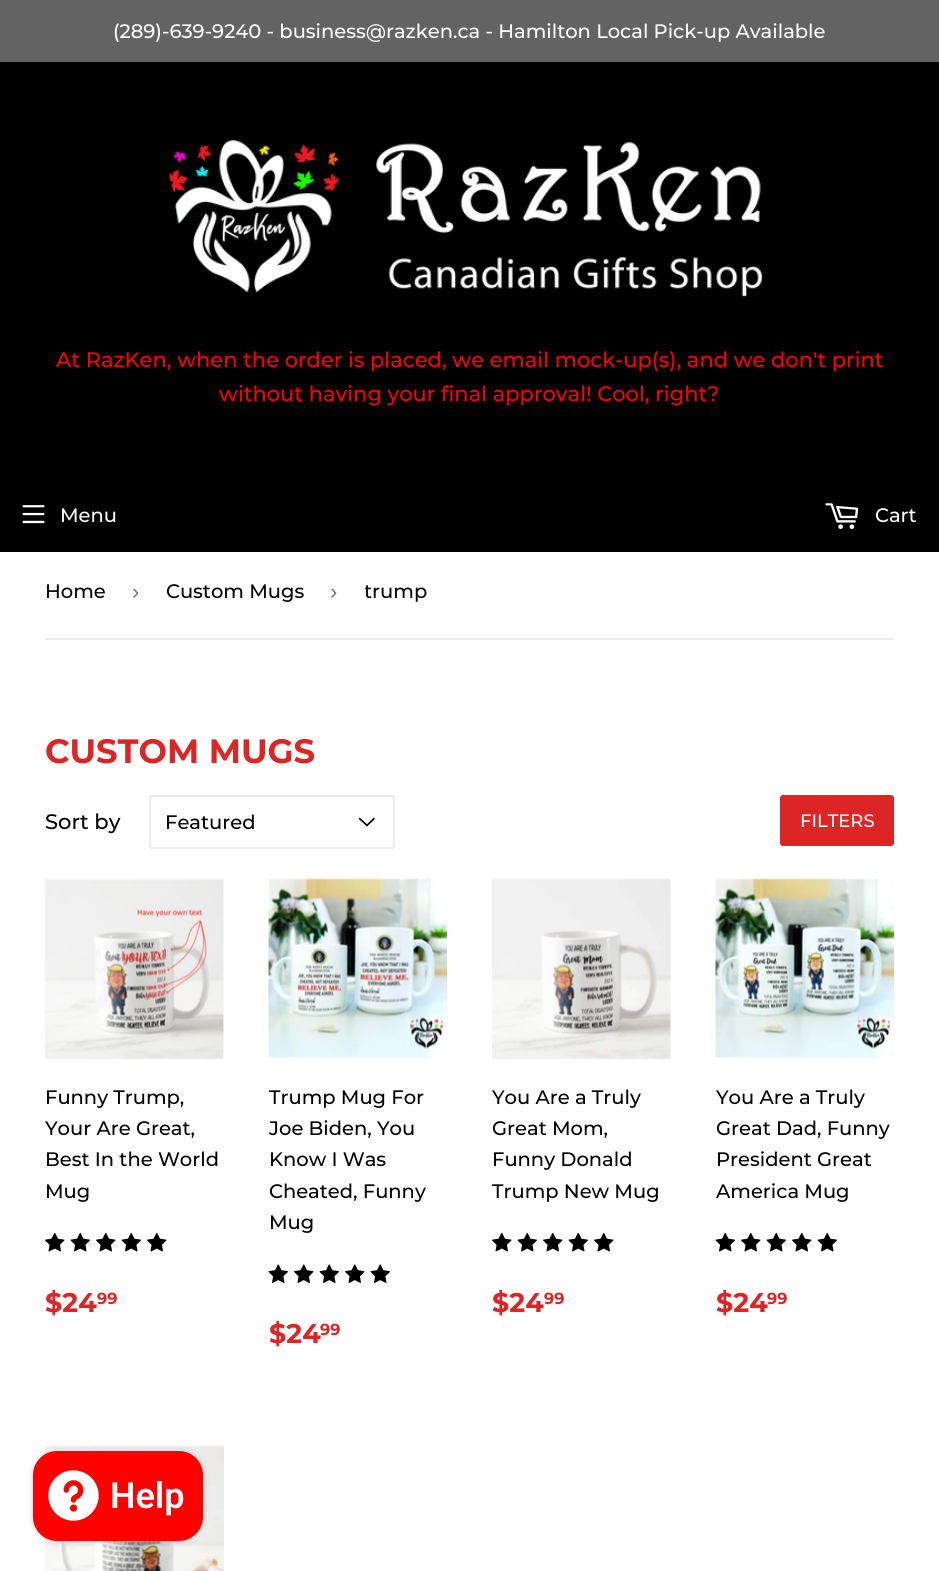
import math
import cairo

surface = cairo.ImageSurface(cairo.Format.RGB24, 939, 1571)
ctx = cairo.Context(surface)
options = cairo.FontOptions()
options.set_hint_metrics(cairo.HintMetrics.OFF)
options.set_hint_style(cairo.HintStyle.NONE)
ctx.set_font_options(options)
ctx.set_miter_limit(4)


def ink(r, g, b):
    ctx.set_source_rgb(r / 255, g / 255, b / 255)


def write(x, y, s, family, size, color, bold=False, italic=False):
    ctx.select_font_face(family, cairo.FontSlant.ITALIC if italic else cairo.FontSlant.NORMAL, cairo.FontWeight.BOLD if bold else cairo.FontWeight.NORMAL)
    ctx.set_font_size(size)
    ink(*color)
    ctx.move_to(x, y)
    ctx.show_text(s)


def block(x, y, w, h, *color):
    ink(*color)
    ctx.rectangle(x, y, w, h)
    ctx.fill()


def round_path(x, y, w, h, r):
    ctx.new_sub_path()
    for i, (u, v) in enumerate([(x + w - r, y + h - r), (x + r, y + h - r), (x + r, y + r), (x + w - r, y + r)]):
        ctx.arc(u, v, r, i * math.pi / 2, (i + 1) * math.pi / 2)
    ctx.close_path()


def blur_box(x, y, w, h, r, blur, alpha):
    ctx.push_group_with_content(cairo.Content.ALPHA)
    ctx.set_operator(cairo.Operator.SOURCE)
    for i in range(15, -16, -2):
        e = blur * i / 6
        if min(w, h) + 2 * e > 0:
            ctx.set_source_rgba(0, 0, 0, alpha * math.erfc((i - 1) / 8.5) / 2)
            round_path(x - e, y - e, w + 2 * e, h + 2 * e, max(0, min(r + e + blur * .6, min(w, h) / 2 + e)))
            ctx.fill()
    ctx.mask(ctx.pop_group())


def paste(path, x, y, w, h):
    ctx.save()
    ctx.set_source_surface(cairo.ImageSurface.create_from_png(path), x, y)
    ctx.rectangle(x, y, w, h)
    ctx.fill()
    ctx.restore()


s1 = dict(family="Montserrat Medium", size=19.5, color=(255, 255, 255))
s2 = dict(family="Montserrat Medium", size=21, color=(255, 0, 0))
s3 = dict(family="Montserrat Medium", size=19.5, color=(0, 0, 0))
s4 = dict(family="Liberation Sans", size=22, color=(118, 118, 118))
s5 = dict(family="Montserrat", size=33.75, color=(221, 37, 37), bold=True)
s6 = dict(family="Montserrat Medium", size=21, color=(0, 0, 0))
s7 = dict(family="Montserrat Medium", size=18, color=(255, 255, 255))
s8 = dict(family="Montserrat", size=27, color=(221, 37, 37), bold=True)
s9 = dict(family="Montserrat", size=16, color=(221, 37, 37), bold=True)
s10 = dict(family="Roboto SemiBold", size=36, color=(255, 255, 255))

ink(255, 255, 255)
ctx.paint()
block(0, 0, 939, 62, 99, 99, 99)
write(113, 38, "(289)-639-9240 - business@razken.ca - Hamilton Local Pick-up Available", **s1)
block(0, 62, 939, 490, 0, 0, 0)
paste("pic1.png", 169, 140, 594, 157)
write(56, 367, "At RazKen, when the order is placed, we email mock-up(s), and we don't print", **s2)
write(219, 401, "without having your final approval! Cool, right?", **s2)
paste("pic2.png", 22, 505, 23, 19)
write(60, 522, "Menu", **s1)
paste("pic3.png", 825, 503, 34, 26)
write(875, 522, "Cart", **s1)
block(45, 638, 849, 2, 236, 236, 236)
write(45, 598, "Home", **s3)
write(132, 599, "›", **s4)
ctx.save()
ctx.rectangle(167, 552, 148, 77)
ctx.clip()
write(166, 598, "Custom Mugs", **s3)
ctx.restore()
write(330, 599, "›", **s4)
ctx.save()
ctx.rectangle(365, 552, 73, 77)
ctx.clip()
write(364, 598, "trump", **s3)
ctx.restore()
write(45, 763, "CUSTOM MUGS", **s5)
write(45, 829, "Sort by", **s6)
paste("pic4.png", 358, 817, 17, 10)
round_path(150, 796, 244, 52, 2)
ink(236, 236, 236)
ctx.stroke()
write(165, 829, "Featured", **s3)
ink(221, 37, 37)
round_path(780, 795, 114, 51, 3)
ctx.fill()
write(800, 827, "FILTERS", **s7)
paste("pic5.png", 45, 878, 179, 182)
write(45, 1104, "Funny Trump,", **s3)
write(45, 1135, "Your Are Great,", **s3)
write(45, 1166, "Best In the World", **s3)
write(45, 1198, "Mug", **s3)
paste("pic6.png", 45, 1232, 20, 20)
paste("pic7.png", 70, 1232, 20, 20)
paste("pic6.png", 96, 1232, 20, 20)
paste("pic7.png", 121, 1232, 20, 20)
paste("pic6.png", 147, 1232, 20, 20)
write(45, 1312, "$24", **s8)
write(97, 1304, "99", **s9)
paste("pic8.png", 268, 878, 179, 180)
write(269, 1104, "Trump Mug For", **s3)
write(269, 1135, "Joe Biden, You", **s3)
write(269, 1166, "Know I Was", **s3)
write(269, 1198, "Cheated, Funny", **s3)
write(269, 1229, "Mug", **s3)
paste("pic9.png", 268, 1264, 20, 19)
paste("pic10.png", 294, 1264, 20, 19)
paste("pic9.png", 319, 1264, 20, 19)
paste("pic10.png", 345, 1264, 20, 19)
paste("pic9.png", 370, 1264, 20, 19)
write(269, 1343, "$24", **s8)
write(320, 1335, "99", **s9)
paste("pic11.png", 492, 878, 179, 182)
write(492, 1104, "You Are a Truly", **s3)
write(492, 1135, "Great Mom,", **s3)
write(492, 1166, "Funny Donald", **s3)
write(492, 1198, "Trump New Mug", **s3)
paste("pic6.png", 492, 1232, 20, 20)
paste("pic7.png", 517, 1232, 20, 20)
paste("pic6.png", 543, 1232, 20, 20)
paste("pic7.png", 568, 1232, 20, 20)
paste("pic6.png", 594, 1232, 20, 20)
write(492, 1312, "$24", **s8)
write(544, 1304, "99", **s9)
paste("pic12.png", 715, 878, 179, 180)
write(716, 1104, "You Are a Truly", **s3)
write(716, 1135, "Great Dad, Funny", **s3)
write(716, 1166, "President Great", **s3)
write(716, 1198, "America Mug", **s3)
paste("pic7.png", 715, 1232, 20, 20)
paste("pic6.png", 741, 1232, 20, 20)
paste("pic7.png", 766, 1232, 20, 20)
paste("pic6.png", 792, 1232, 20, 20)
paste("pic7.png", 817, 1232, 20, 20)
write(716, 1312, "$24", **s8)
write(767, 1304, "99", **s9)
paste("pic13.png", 45, 1445, 179, 126)
ink(0, 0, 0)
blur_box(33, 1451, 170, 90, 24, 4, 0.15)
ink(255, 0, 0)
round_path(33, 1451, 170, 90, 24)
ctx.fill()
paste("pic14.png", 48, 1470, 51, 51)
write(110, 1508, "Help", **s10)
surface.write_to_png("screenshot.png")
